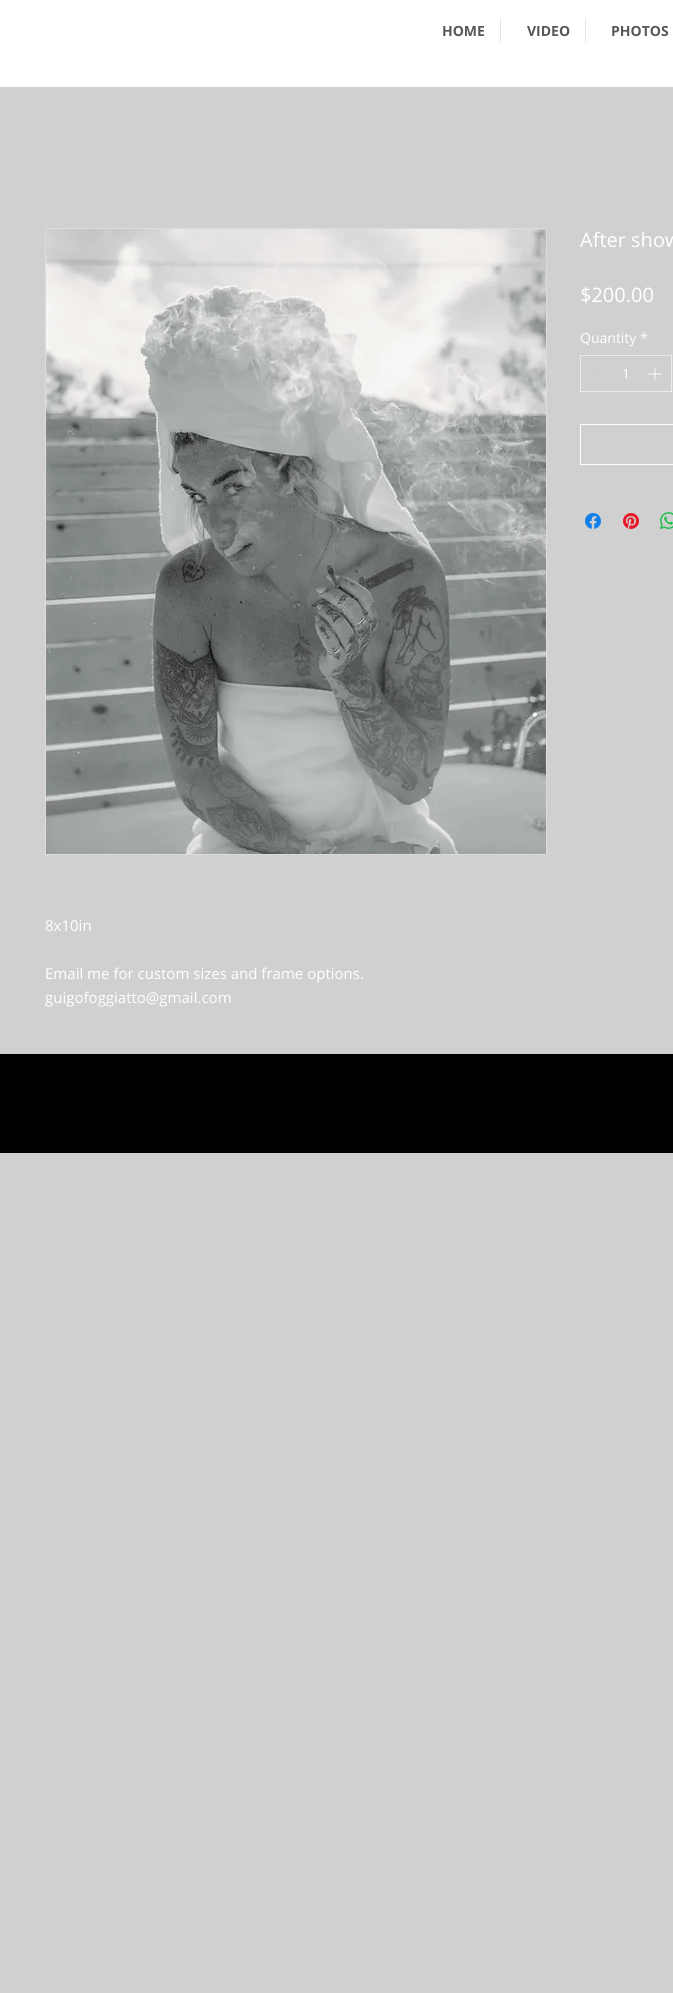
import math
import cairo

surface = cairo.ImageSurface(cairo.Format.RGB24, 673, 1993)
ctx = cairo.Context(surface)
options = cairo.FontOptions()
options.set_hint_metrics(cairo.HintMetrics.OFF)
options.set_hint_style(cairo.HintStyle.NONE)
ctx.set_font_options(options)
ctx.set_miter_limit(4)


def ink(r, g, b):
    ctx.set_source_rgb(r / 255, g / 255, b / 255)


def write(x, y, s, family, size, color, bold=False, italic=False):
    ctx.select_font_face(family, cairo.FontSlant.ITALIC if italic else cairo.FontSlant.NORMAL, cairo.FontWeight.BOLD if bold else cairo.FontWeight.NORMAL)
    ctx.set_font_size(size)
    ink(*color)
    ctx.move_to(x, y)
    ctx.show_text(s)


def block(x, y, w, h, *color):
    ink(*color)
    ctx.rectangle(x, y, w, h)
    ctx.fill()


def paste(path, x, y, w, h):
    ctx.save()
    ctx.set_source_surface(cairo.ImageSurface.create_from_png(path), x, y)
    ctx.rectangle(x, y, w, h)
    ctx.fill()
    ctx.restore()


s1 = dict(family="Open Sans", size=14, color=(88, 88, 88), bold=True)
s2 = dict(family="Open Sans", size=20, color=(255, 255, 255))
s3 = dict(family="Open Sans", size=14, color=(255, 255, 255))
s4 = dict(family="Open Sans", size=15, color=(255, 255, 255))

ink(208, 208, 208)
ctx.paint()
block(0, 0, 673, 87, 255, 255, 255)
write(442, 36, "HOME", **s1)
block(500, 18, 1, 25, 229, 230, 232)
write(527, 36, "VIDEO", **s1)
block(585, 18, 1, 25, 229, 230, 232)
write(611, 36, "PHOTOS", **s1)
write(580, 247, "After show", **s2)
write(580, 302, "$200.00", **s2)
write(580, 343, "Quantity", **s3)
write(640, 343, "*", **s3)
ctx.rectangle(580.5, 355.5, 91, 36)
ink(236, 236, 236)
ctx.set_line_width(1)
ctx.stroke()
block(592, 374, 13, 1, 204, 204, 204)
write(622, 379, "1", **s3)
paste("pic1.png", 648, 367, 14, 14)
ctx.rectangle(580.5, 424.5, 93, 40)
ctx.stroke()
paste("pic2.png", 585, 513, 16, 16)
paste("pic3.png", 623, 513, 16, 16)
paste("pic4.png", 660, 512, 13, 17)
ctx.rectangle(45.5, 228.5, 501, 626)
ink(220, 220, 220)
ctx.stroke()
paste("pic5.png", 46, 229, 500, 625)
write(45, 931, "8x10in", **s4)
write(45, 979, "Email me for custom sizes and frame options.", **s4)
write(45, 1003, "guigofoggiatto@gmail.com", **s4)
block(0, 1054, 673, 99, 0, 0, 0)
surface.write_to_png("screenshot.png")
